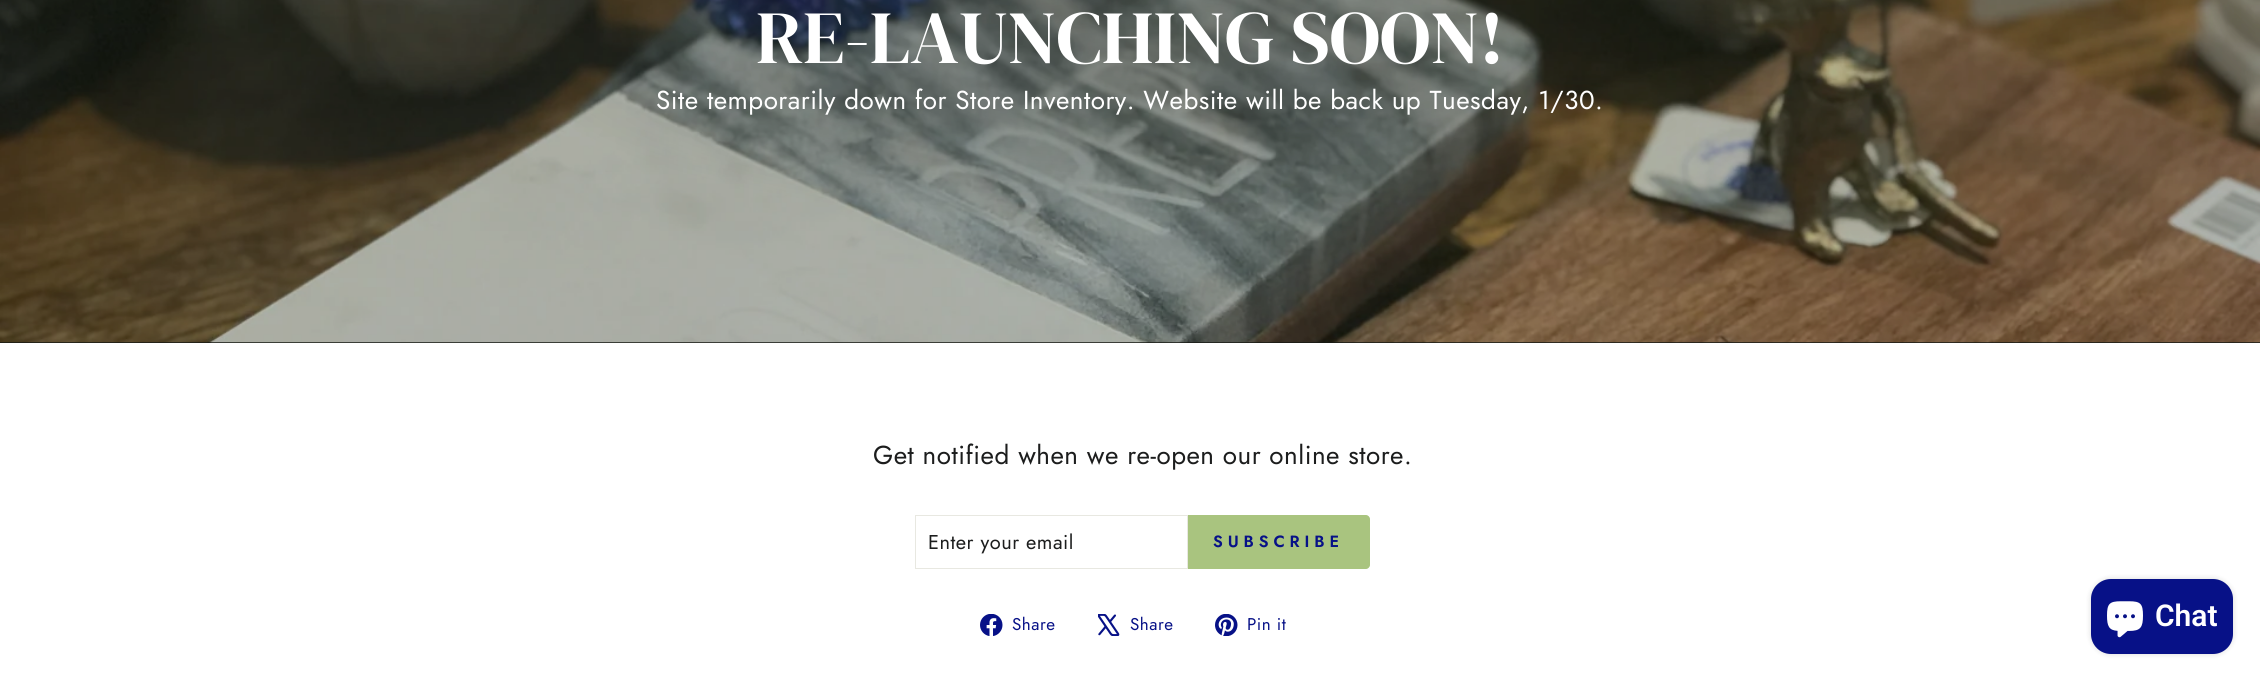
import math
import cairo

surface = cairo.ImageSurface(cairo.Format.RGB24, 2260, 680)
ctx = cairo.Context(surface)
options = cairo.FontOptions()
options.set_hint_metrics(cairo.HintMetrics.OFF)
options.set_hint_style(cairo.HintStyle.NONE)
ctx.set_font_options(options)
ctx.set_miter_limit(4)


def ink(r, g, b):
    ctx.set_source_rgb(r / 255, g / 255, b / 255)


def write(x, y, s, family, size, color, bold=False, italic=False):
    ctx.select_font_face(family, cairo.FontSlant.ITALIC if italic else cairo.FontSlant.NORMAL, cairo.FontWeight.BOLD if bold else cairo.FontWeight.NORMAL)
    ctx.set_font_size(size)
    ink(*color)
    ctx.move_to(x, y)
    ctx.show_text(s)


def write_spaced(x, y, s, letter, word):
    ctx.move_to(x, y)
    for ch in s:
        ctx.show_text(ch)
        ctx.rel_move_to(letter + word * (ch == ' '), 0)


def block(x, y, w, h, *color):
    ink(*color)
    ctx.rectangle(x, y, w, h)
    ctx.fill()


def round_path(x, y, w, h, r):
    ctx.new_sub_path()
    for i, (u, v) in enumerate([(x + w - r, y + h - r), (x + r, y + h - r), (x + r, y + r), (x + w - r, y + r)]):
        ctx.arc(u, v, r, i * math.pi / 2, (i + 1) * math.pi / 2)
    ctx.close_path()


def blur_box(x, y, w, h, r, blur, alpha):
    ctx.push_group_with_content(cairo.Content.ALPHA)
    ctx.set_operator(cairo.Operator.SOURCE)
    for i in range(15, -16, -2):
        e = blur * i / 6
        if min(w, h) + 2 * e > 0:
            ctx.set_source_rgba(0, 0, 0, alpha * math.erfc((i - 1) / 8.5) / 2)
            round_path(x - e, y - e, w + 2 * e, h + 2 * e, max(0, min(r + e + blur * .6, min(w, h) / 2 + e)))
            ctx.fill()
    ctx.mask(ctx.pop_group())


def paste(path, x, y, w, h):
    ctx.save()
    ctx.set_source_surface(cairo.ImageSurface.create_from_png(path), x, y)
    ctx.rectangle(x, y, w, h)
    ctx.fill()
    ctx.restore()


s1 = dict(family="DM Serif Display", size=75, color=(255, 255, 255))
s2 = dict(family="Roboto SemiBold", size=30, color=(255, 255, 255))

ink(255, 255, 255)
ctx.paint()
block(0, 342, 2260, 1, 22, 24, 19)
paste("pic1.png", 0, 0, 2260, 343)
write(756, 63, "RE-LAUNCHING SOON!", **s1)
ctx.select_font_face("Jost")
ctx.set_font_size(26)
write_spaced(656, 109, "Site temporarily down for Store Inventory. Website will be back up Tuesday, 1/30.", 0.5, 0)
ink(28, 29, 29)
write_spaced(873, 464, "Get notified when we re-open our online store.", 0.5, 0)
ctx.rectangle(915.5, 515.5, 272, 53)
ink(232, 232, 225)
ctx.set_line_width(1)
ctx.stroke()
ctx.set_font_size(20)
ink(28, 29, 29)
write_spaced(928, 549, "Enter your email", 0.5, 0)
ink(169, 196, 127)
ctx.new_path()
ctx.move_to(1188, 515)
ctx.line_to(1366, 515)
ctx.curve_to(1368, 515, 1370, 517, 1370, 519)
ctx.line_to(1370, 565)
ctx.curve_to(1370, 567, 1368, 569, 1366, 569)
ctx.line_to(1188, 569)
ctx.close_path()
ctx.fill()
ctx.select_font_face("Jost SemiBold")
ctx.set_font_size(16.25)
ink(7, 17, 135)
write_spaced(1213, 547, "SUBSCRIBE", 4.9, 0)
paste("pic2.png", 980, 614, 23, 22)
ctx.select_font_face("Jost")
ctx.set_font_size(17)
write_spaced(1012, 630, "Share", 0.5, 0)
paste("pic3.png", 1098, 614, 22, 22)
write_spaced(1130, 630, "Share", 0.5, 0)
paste("pic4.png", 1215, 614, 23, 22)
write_spaced(1247, 630, "Pin it", 0.5, 0)
ink(0, 0, 0)
blur_box(2091, 579, 142, 75, 20, 3, 0.15)
ink(7, 17, 135)
round_path(2091, 579, 142, 75, 20)
ctx.fill()
paste("pic5.png", 2107, 601, 36, 37)
write(2155, 626, "Chat", **s2)
surface.write_to_png("screenshot.png")
